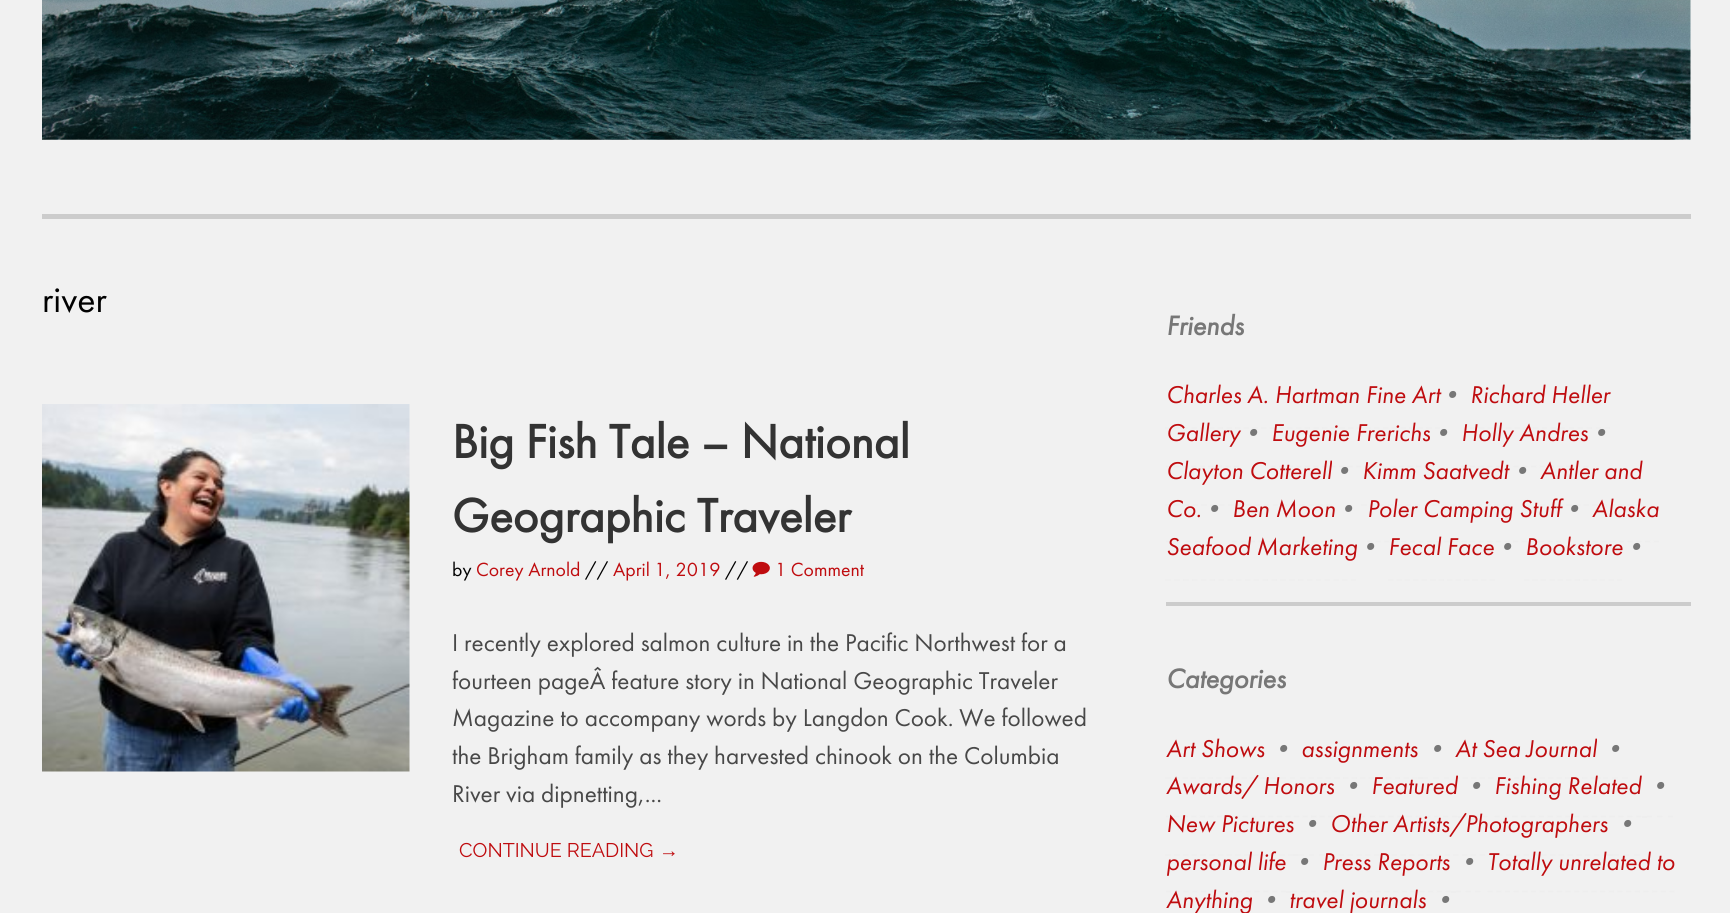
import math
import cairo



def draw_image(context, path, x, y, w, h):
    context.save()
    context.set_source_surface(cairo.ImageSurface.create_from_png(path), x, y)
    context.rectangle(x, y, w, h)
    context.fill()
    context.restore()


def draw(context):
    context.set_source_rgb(241 / 255, 241 / 255, 241 / 255)
    context.paint()
    context.set_source_rgb(204 / 255, 204 / 255, 204 / 255)
    context.rectangle(42, 214, 1649, 5)
    context.fill()
    draw_image(context, "images/1.png", 42, 0, 1649, 140)
    draw_image(context, "images/2.png", 42, 404, 368, 368)
    draw_image(context, "images/3.png", 752, 561, 18, 16)
    context.rectangle(1166, 602, 525, 4)
    context.fill()
    context.new_path()
    context.move_to(1165.5, 428)
    context.line_to(1440, 428)
    context.set_source_rgb(238 / 255, 238 / 255, 238 / 255)
    context.set_line_width(1.8)
    context.set_dash([5.25, 3.45])
    context.stroke()
    context.new_path()
    context.move_to(1470, 428)
    context.line_to(1610, 428)
    context.set_dash([5.25, 3.73])
    context.stroke()
    context.save()
    context.rectangle(1166, 271, 525, 331)
    context.clip()
    context.new_path()
    context.move_to(1165.5, 466.5)
    context.line_to(1239, 466.5)
    context.set_dash([5.25, 3.29])
    context.stroke()
    context.restore()
    context.new_path()
    context.move_to(1270.5, 466.5)
    context.line_to(1430, 466.5)
    context.set_dash([5.25, 3.31])
    context.stroke()
    context.new_path()
    context.move_to(1461, 466.5)
    context.line_to(1589, 466.5)
    context.set_dash([5.25, 3.5])
    context.stroke()
    context.new_path()
    context.move_to(1165.5, 505)
    context.line_to(1332, 505)
    context.set_dash([5.25, 3.69])
    context.stroke()
    context.new_path()
    context.move_to(1361.5, 505)
    context.line_to(1508.5, 505)
    context.set_dash([5.25, 3.6])
    context.stroke()
    context.new_path()
    context.move_to(1540, 505)
    context.line_to(1641.5, 505)
    context.set_dash([5.25, 3.5])
    context.stroke()
    context.save()
    context.rectangle(1166, 271, 525, 331)
    context.clip()
    context.new_path()
    context.move_to(1165.5, 541.5)
    context.line_to(1200.5, 541.5)
    context.set_dash([5.25, 4.67])
    context.stroke()
    context.restore()
    context.new_path()
    context.move_to(1232, 541.5)
    context.line_to(1335, 541.5)
    context.set_dash([5.25, 3.66])
    context.stroke()
    context.new_path()
    context.move_to(1367, 541.5)
    context.line_to(1561, 541.5)
    context.set_dash([5.25, 3.34])
    context.stroke()
    context.new_path()
    context.move_to(1592.5, 541.5)
    context.line_to(1659, 541.5)
    context.set_dash([5.25, 3.5])
    context.stroke()
    context.new_path()
    context.move_to(1165.5, 580)
    context.line_to(1356, 580)
    context.set_dash([5.25, 3.59])
    context.stroke()
    context.new_path()
    context.move_to(1388, 580)
    context.line_to(1494.5, 580)
    context.set_dash([5.25, 3.2])
    context.stroke()
    context.new_path()
    context.move_to(1524, 580)
    context.line_to(1622, 580)
    context.set_dash([5.25, 3.19])
    context.stroke()
    context.new_path()
    context.move_to(1165.5, 778)
    context.line_to(1263.5, 778)
    context.stroke()
    context.new_path()
    context.move_to(1263.5, 778)
    context.line_to(1269, 778)
    context.move_to(1270.5, 778)
    context.line_to(1276, 778)
    context.move_to(1280, 778)
    context.line_to(1285.5, 778)
    context.move_to(1290, 778)
    context.line_to(1295, 778)
    context.set_dash([])
    context.stroke()
    context.new_path()
    context.move_to(1300, 778)
    context.line_to(1417.5, 778)
    context.set_dash([5.25, 3.36])
    context.stroke()
    context.rectangle(1418, 777, 5, 2)
    context.fill()
    context.new_path()
    context.move_to(1423, 778)
    context.line_to(1428, 778)
    context.move_to(1433, 778)
    context.line_to(1438.5, 778)
    context.move_to(1444, 778)
    context.line_to(1449, 778)
    context.set_dash([])
    context.stroke()
    context.new_path()
    context.move_to(1454, 778)
    context.line_to(1596, 778)
    context.set_dash([5.25, 3.29])
    context.stroke()
    context.new_path()
    context.move_to(1596, 778)
    context.line_to(1601, 778)
    context.move_to(1603, 778)
    context.line_to(1608, 778)
    context.move_to(1612.5, 778)
    context.line_to(1618, 778)
    context.move_to(1622, 778)
    context.line_to(1627.5, 778)
    context.set_dash([])
    context.stroke()
    context.save()
    context.rectangle(1166, 625, 525, 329)
    context.clip()
    context.new_path()
    context.move_to(1165.5, 816.5)
    context.line_to(1333.5, 816.5)
    context.set_dash([5.25, 3.31])
    context.stroke()
    context.restore()
    context.rectangle(1334, 816, 5, 2)
    context.fill()
    context.new_path()
    context.move_to(1339, 816.5)
    context.line_to(1344, 816.5)
    context.move_to(1349, 816.5)
    context.line_to(1354.5, 816.5)
    context.move_to(1360, 816.5)
    context.line_to(1365, 816.5)
    context.stroke()
    context.new_path()
    context.move_to(1370, 816.5)
    context.line_to(1458, 816.5)
    context.set_dash([5.25, 3.89])
    context.stroke()
    context.rectangle(1458, 816, 5, 2)
    context.fill()
    context.new_path()
    context.move_to(1463, 816.5)
    context.line_to(1468, 816.5)
    context.move_to(1472.5, 816.5)
    context.line_to(1478, 816.5)
    context.move_to(1482, 816.5)
    context.line_to(1487.5, 816.5)
    context.set_dash([])
    context.stroke()
    context.new_path()
    context.move_to(1494.5, 816.5)
    context.line_to(1641.5, 816.5)
    context.set_dash([5.25, 3.6])
    context.stroke()
    context.rectangle(1642, 816, 5, 2)
    context.fill()
    context.new_path()
    context.move_to(1647, 816.5)
    context.line_to(1652, 816.5)
    context.move_to(1657, 816.5)
    context.line_to(1662.5, 816.5)
    context.move_to(1668, 816.5)
    context.line_to(1673, 816.5)
    context.set_dash([])
    context.stroke()
    context.new_path()
    context.move_to(1165.5, 855)
    context.line_to(1293, 855)
    context.set_dash([5.25, 3.5])
    context.stroke()
    context.rectangle(1293, 854, 5, 2)
    context.fill()
    context.new_path()
    context.move_to(1298.5, 855)
    context.line_to(1304, 855)
    context.move_to(1309, 855)
    context.line_to(1314, 855)
    context.move_to(1319.5, 855)
    context.line_to(1325, 855)
    context.set_dash([])
    context.stroke()
    context.new_path()
    context.move_to(1330, 855)
    context.line_to(1608, 855)
    context.set_dash([5.25, 3.55])
    context.stroke()
    context.rectangle(1608, 854, 5, 2)
    context.fill()
    context.new_path()
    context.move_to(1613.5, 855)
    context.line_to(1619, 855)
    context.move_to(1624, 855)
    context.line_to(1629, 855)
    context.move_to(1634.5, 855)
    context.line_to(1640, 855)
    context.set_dash([])
    context.stroke()
    context.save()
    context.rectangle(1166, 625, 525, 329)
    context.clip()
    context.new_path()
    context.move_to(1165.5, 891.5)
    context.line_to(1286, 891.5)
    context.set_dash([5.25, 3.64])
    context.stroke()
    context.restore()
    context.rectangle(1286, 891, 5, 2)
    context.fill()
    context.new_path()
    context.move_to(1291.5, 891.5)
    context.line_to(1297, 891.5)
    context.move_to(1301, 891.5)
    context.line_to(1306.5, 891.5)
    context.move_to(1311, 891.5)
    context.line_to(1316, 891.5)
    context.stroke()
    context.new_path()
    context.move_to(1323, 891.5)
    context.line_to(1451, 891.5)
    context.set_dash([5.25, 3.5])
    context.stroke()
    context.rectangle(1451, 891, 5, 2)
    context.fill()
    context.new_path()
    context.move_to(1456, 891.5)
    context.line_to(1461, 891.5)
    context.move_to(1465.5, 891.5)
    context.line_to(1471, 891.5)
    context.move_to(1475, 891.5)
    context.line_to(1480.5, 891.5)
    context.set_dash([])
    context.stroke()
    context.new_path()
    context.move_to(1487.5, 891.5)
    context.line_to(1675, 891.5)
    context.set_dash([5.25, 3.41])
    context.stroke()
    context.select_font_face("Futura PT")
    context.set_font_size(38)
    context.set_source_rgb(1 / 255, 1 / 255, 1 / 255)
    context.move_to(42, 312)
    context.show_text("river")
    context.select_font_face("Futura PT", cairo.FontSlant.NORMAL, cairo.FontWeight.BOLD)
    context.set_font_size(49.1)
    context.set_source_rgb(51 / 255, 51 / 255, 51 / 255)
    context.move_to(452, 458)
    context.show_text("Big Fish Tale – National")
    context.move_to(452, 532)
    context.show_text("Geographic Traveler")
    context.select_font_face("Futura PT")
    context.set_font_size(19.75)
    context.set_source_rgb(1 / 255, 1 / 255, 1 / 255)
    context.move_to(452, 576)
    context.show_text("by")
    context.set_source_rgb(191 / 255, 12 / 255, 15 / 255)
    context.move_to(476, 576)
    context.show_text("Corey Arnold")
    context.set_source_rgb(1 / 255, 1 / 255, 1 / 255)
    context.move_to(585, 576)
    context.show_text("//")
    context.set_source_rgb(191 / 255, 12 / 255, 15 / 255)
    context.move_to(613, 576)
    context.show_text("April 1, 2019")
    context.set_source_rgb(1 / 255, 1 / 255, 1 / 255)
    context.move_to(725, 576)
    context.show_text("//")
    context.set_source_rgb(191 / 255, 12 / 255, 15 / 255)
    context.move_to(775, 576)
    context.show_text("1 Comment")
    context.set_font_size(25.2)
    context.set_source_rgb(72 / 255, 72 / 255, 72 / 255)
    context.move_to(452, 651)
    context.show_text("I recently explored salmon culture in the Pacific Northwest for a")
    context.move_to(452, 689)
    context.show_text("fourteen pageÂ feature story in National Geographic Traveler")
    context.move_to(452, 726)
    context.show_text("Magazine to accompany words by Langdon Cook. We followed")
    context.move_to(452, 764)
    context.show_text("the Brigham family as they harvested chinook on the Columbia")
    context.move_to(452, 802)
    context.show_text("River via dipnetting,...")
    context.select_font_face("Raleway")
    context.set_font_size(19.75)
    context.set_source_rgb(191 / 255, 12 / 255, 15 / 255)
    context.move_to(459, 857)
    context.show_text("CONTINUE READING")
    context.select_font_face("Liberation Sans")
    context.move_to(659, 857)
    context.show_text("→")
    context.select_font_face("Futura PT", cairo.FontSlant.ITALIC, cairo.FontWeight.BOLD)
    context.set_font_size(28)
    context.set_source_rgb(119 / 255, 119 / 255, 119 / 255)
    context.move_to(1166, 335)
    context.show_text("Friends")
    context.select_font_face("Futura PT", cairo.FontSlant.ITALIC)
    context.set_font_size(25.2)
    context.set_source_rgb(191 / 255, 12 / 255, 15 / 255)
    context.move_to(1166, 403)
    context.show_text("Charles A. Hartman Fine Art")
    context.set_source_rgb(119 / 255, 119 / 255, 119 / 255)
    context.move_to(1439, 403)
    context.show_text("•")
    context.set_source_rgb(191 / 255, 12 / 255, 15 / 255)
    context.move_to(1470, 403)
    context.show_text("Richard Heller")
    context.move_to(1166, 441)
    context.show_text("Gallery")
    context.set_source_rgb(119 / 255, 119 / 255, 119 / 255)
    context.move_to(1240, 441)
    context.show_text("•")
    context.set_source_rgb(191 / 255, 12 / 255, 15 / 255)
    context.move_to(1271, 441)
    context.show_text("Eugenie Frerichs")
    context.set_source_rgb(119 / 255, 119 / 255, 119 / 255)
    context.move_to(1430, 441)
    context.show_text("•")
    context.set_source_rgb(191 / 255, 12 / 255, 15 / 255)
    context.move_to(1461, 441)
    context.show_text("Holly Andres")
    context.set_source_rgb(119 / 255, 119 / 255, 119 / 255)
    context.move_to(1588, 441)
    context.show_text("•")
    context.set_source_rgb(191 / 255, 12 / 255, 15 / 255)
    context.move_to(1166, 479)
    context.show_text("Clayton Cotterell")
    context.set_source_rgb(119 / 255, 119 / 255, 119 / 255)
    context.move_to(1331, 479)
    context.show_text("•")
    context.set_source_rgb(191 / 255, 12 / 255, 15 / 255)
    context.move_to(1362, 479)
    context.show_text("Kimm Saatvedt")
    context.set_source_rgb(119 / 255, 119 / 255, 119 / 255)
    context.move_to(1509, 479)
    context.show_text("•")
    context.set_source_rgb(191 / 255, 12 / 255, 15 / 255)
    context.move_to(1540, 479)
    context.show_text("Antler and")
    context.move_to(1166, 517)
    context.show_text("Co.")
    context.set_source_rgb(119 / 255, 119 / 255, 119 / 255)
    context.move_to(1201, 517)
    context.show_text("•")
    context.set_source_rgb(191 / 255, 12 / 255, 15 / 255)
    context.move_to(1232, 517)
    context.show_text("Ben Moon")
    context.set_source_rgb(119 / 255, 119 / 255, 119 / 255)
    context.move_to(1335, 517)
    context.show_text("•")
    context.set_source_rgb(191 / 255, 12 / 255, 15 / 255)
    context.move_to(1367, 517)
    context.show_text("Poler Camping Stuff")
    context.set_source_rgb(119 / 255, 119 / 255, 119 / 255)
    context.move_to(1561, 517)
    context.show_text("•")
    context.set_source_rgb(191 / 255, 12 / 255, 15 / 255)
    context.move_to(1592, 517)
    context.show_text("Alaska")
    context.move_to(1166, 555)
    context.show_text("Seafood Marketing")
    context.set_source_rgb(119 / 255, 119 / 255, 119 / 255)
    context.move_to(1357, 555)
    context.show_text("•")
    context.set_source_rgb(191 / 255, 12 / 255, 15 / 255)
    context.move_to(1388, 555)
    context.show_text("Fecal Face")
    context.set_source_rgb(119 / 255, 119 / 255, 119 / 255)
    context.move_to(1494, 555)
    context.show_text("•")
    context.set_source_rgb(191 / 255, 12 / 255, 15 / 255)
    context.move_to(1525, 555)
    context.show_text("Bookstore")
    context.set_source_rgb(119 / 255, 119 / 255, 119 / 255)
    context.move_to(1623, 555)
    context.show_text("•")
    context.select_font_face("Futura PT", cairo.FontSlant.ITALIC, cairo.FontWeight.BOLD)
    context.set_font_size(28)
    context.move_to(1166, 688)
    context.show_text("Categories")
    context.select_font_face("Futura PT", cairo.FontSlant.ITALIC)
    context.set_font_size(25.2)
    context.set_source_rgb(191 / 255, 12 / 255, 15 / 255)
    context.move_to(1166, 757)
    context.show_text("Art Shows")
    context.set_source_rgb(119 / 255, 119 / 255, 119 / 255)
    context.move_to(1270, 757)
    context.show_text("•")
    context.set_source_rgb(191 / 255, 12 / 255, 15 / 255)
    context.move_to(1301, 757)
    context.show_text("assignments")
    context.set_source_rgb(119 / 255, 119 / 255, 119 / 255)
    context.move_to(1424, 757)
    context.show_text("•")
    context.set_source_rgb(191 / 255, 12 / 255, 15 / 255)
    context.move_to(1455, 757)
    context.show_text("At Sea Journal")
    context.set_source_rgb(119 / 255, 119 / 255, 119 / 255)
    context.move_to(1602, 757)
    context.show_text("•")
    context.set_source_rgb(191 / 255, 12 / 255, 15 / 255)
    context.move_to(1166, 794)
    context.show_text("Awards/ Honors")
    context.set_source_rgb(119 / 255, 119 / 255, 119 / 255)
    context.move_to(1340, 794)
    context.show_text("•")
    context.set_source_rgb(191 / 255, 12 / 255, 15 / 255)
    context.move_to(1371, 794)
    context.show_text("Featured")
    context.set_source_rgb(119 / 255, 119 / 255, 119 / 255)
    context.move_to(1463, 794)
    context.show_text("•")
    context.set_source_rgb(191 / 255, 12 / 255, 15 / 255)
    context.move_to(1494, 794)
    context.show_text("Fishing Related")
    context.set_source_rgb(119 / 255, 119 / 255, 119 / 255)
    context.move_to(1647, 794)
    context.show_text("•")
    context.set_source_rgb(191 / 255, 12 / 255, 15 / 255)
    context.move_to(1166, 832)
    context.show_text("New Pictures")
    context.set_source_rgb(119 / 255, 119 / 255, 119 / 255)
    context.move_to(1299, 832)
    context.show_text("•")
    context.set_source_rgb(191 / 255, 12 / 255, 15 / 255)
    context.move_to(1330, 832)
    context.show_text("Other Artists/Photographers")
    context.set_source_rgb(119 / 255, 119 / 255, 119 / 255)
    context.move_to(1614, 832)
    context.show_text("•")
    context.set_source_rgb(191 / 255, 12 / 255, 15 / 255)
    context.move_to(1166, 870)
    context.show_text("personal life")
    context.set_source_rgb(119 / 255, 119 / 255, 119 / 255)
    context.move_to(1291, 870)
    context.show_text("•")
    context.set_source_rgb(191 / 255, 12 / 255, 15 / 255)
    context.move_to(1322, 870)
    context.show_text("Press Reports")
    context.set_source_rgb(119 / 255, 119 / 255, 119 / 255)
    context.move_to(1456, 870)
    context.show_text("•")
    context.set_source_rgb(191 / 255, 12 / 255, 15 / 255)
    context.move_to(1487, 870)
    context.show_text("Totally unrelated to")
    context.move_to(1166, 908)
    context.show_text("Anything")
    context.set_source_rgb(119 / 255, 119 / 255, 119 / 255)
    context.move_to(1258, 908)
    context.show_text("•")
    context.set_source_rgb(191 / 255, 12 / 255, 15 / 255)
    context.move_to(1289, 908)
    context.show_text("travel journals")
    context.set_source_rgb(119 / 255, 119 / 255, 119 / 255)
    context.move_to(1432, 908)
    context.show_text("•")


surface = cairo.ImageSurface(cairo.Format.RGB24, 1730, 913)
context = cairo.Context(surface)
options = cairo.FontOptions()
options.set_hint_metrics(cairo.HintMetrics.OFF)
options.set_hint_style(cairo.HintStyle.NONE)
context.set_font_options(options)
context.set_miter_limit(4)
draw(context)
surface.write_to_png("out.png")
